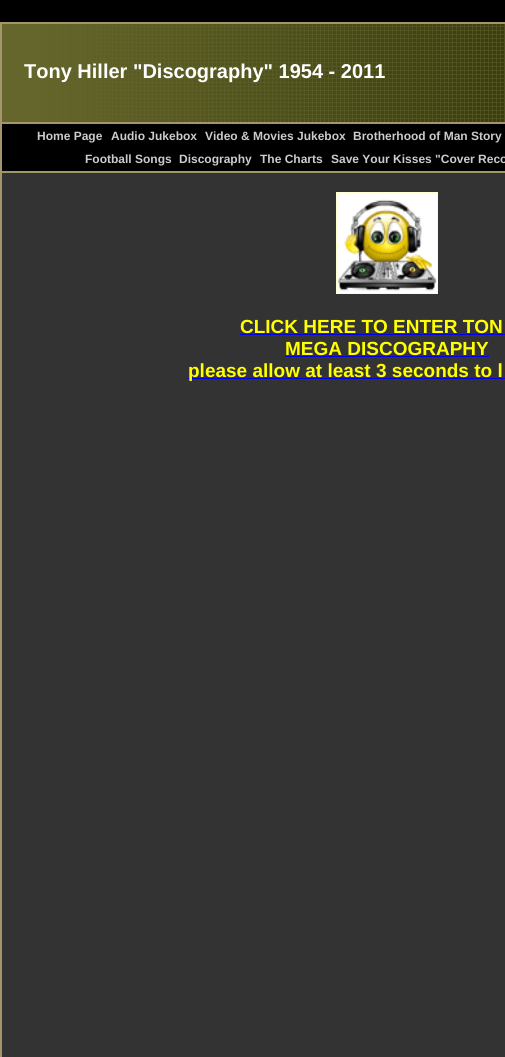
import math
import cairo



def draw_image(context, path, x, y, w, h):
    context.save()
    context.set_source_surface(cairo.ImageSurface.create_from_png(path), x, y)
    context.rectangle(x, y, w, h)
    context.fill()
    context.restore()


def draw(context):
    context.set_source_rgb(0, 0, 0)
    context.paint()
    context.set_source_rgb(51 / 255, 51 / 255, 51 / 255)
    context.rectangle(2, 173, 503, 884)
    context.fill()
    context.rectangle(1, 23, 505, 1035)
    context.set_source_rgb(163 / 255, 150 / 255, 106 / 255)
    context.stroke()
    draw_image(context, "images/1.png", 2, 24, 503, 98)
    context.rectangle(2, 122, 503, 2)
    context.fill()
    context.rectangle(2, 171, 503, 2)
    context.fill()
    context.rectangle(336.5, 192.5, 101, 101)
    context.set_source_rgb(1, 1, 204 / 255)
    context.set_line_width(1)
    context.stroke()
    draw_image(context, "images/2.png", 337, 193, 100, 100)
    context.set_source_rgb(0, 0, 238 / 255)
    context.rectangle(240, 334, 265, 1)
    context.fill()
    context.rectangle(285, 356, 204, 1)
    context.fill()
    context.rectangle(188, 378, 317, 1)
    context.fill()
    context.select_font_face("Liberation Sans", cairo.FontSlant.NORMAL, cairo.FontWeight.BOLD)
    context.set_font_size(20)
    context.set_source_rgb(1, 1, 1)
    context.move_to(24, 78)
    context.show_text("Tony Hiller \"Discography\" 1954 - 2011")
    context.set_font_size(12)
    context.set_source_rgb(204 / 255, 204 / 255, 204 / 255)
    context.move_to(37, 140)
    context.show_text("Home Page")
    context.move_to(111, 140)
    context.show_text("Audio Jukebox")
    context.move_to(205, 140)
    context.show_text("Video & Movies Jukebox")
    context.move_to(353, 140)
    context.show_text("Brotherhood of Man Story")
    context.move_to(85, 163)
    context.show_text("Football Songs")
    context.move_to(179, 163)
    context.show_text("Discography")
    context.move_to(260, 163)
    context.show_text("The Charts")
    context.move_to(331, 163)
    context.show_text("Save Your Kisses \"Cover Reco")
    context.set_font_size(19)
    context.set_source_rgb(1, 1, 0)
    context.move_to(240, 333)
    context.show_text("CLICK HERE TO ENTER TON")
    context.move_to(285, 355)
    context.show_text("MEGA DISCOGRAPHY")
    context.move_to(188, 377)
    context.show_text("please allow at least 3 seconds to l")


surface = cairo.ImageSurface(cairo.Format.RGB24, 505, 1057)
context = cairo.Context(surface)
options = cairo.FontOptions()
options.set_hint_metrics(cairo.HintMetrics.OFF)
options.set_hint_style(cairo.HintStyle.NONE)
context.set_font_options(options)
context.set_miter_limit(4)
draw(context)
surface.write_to_png("out.png")
